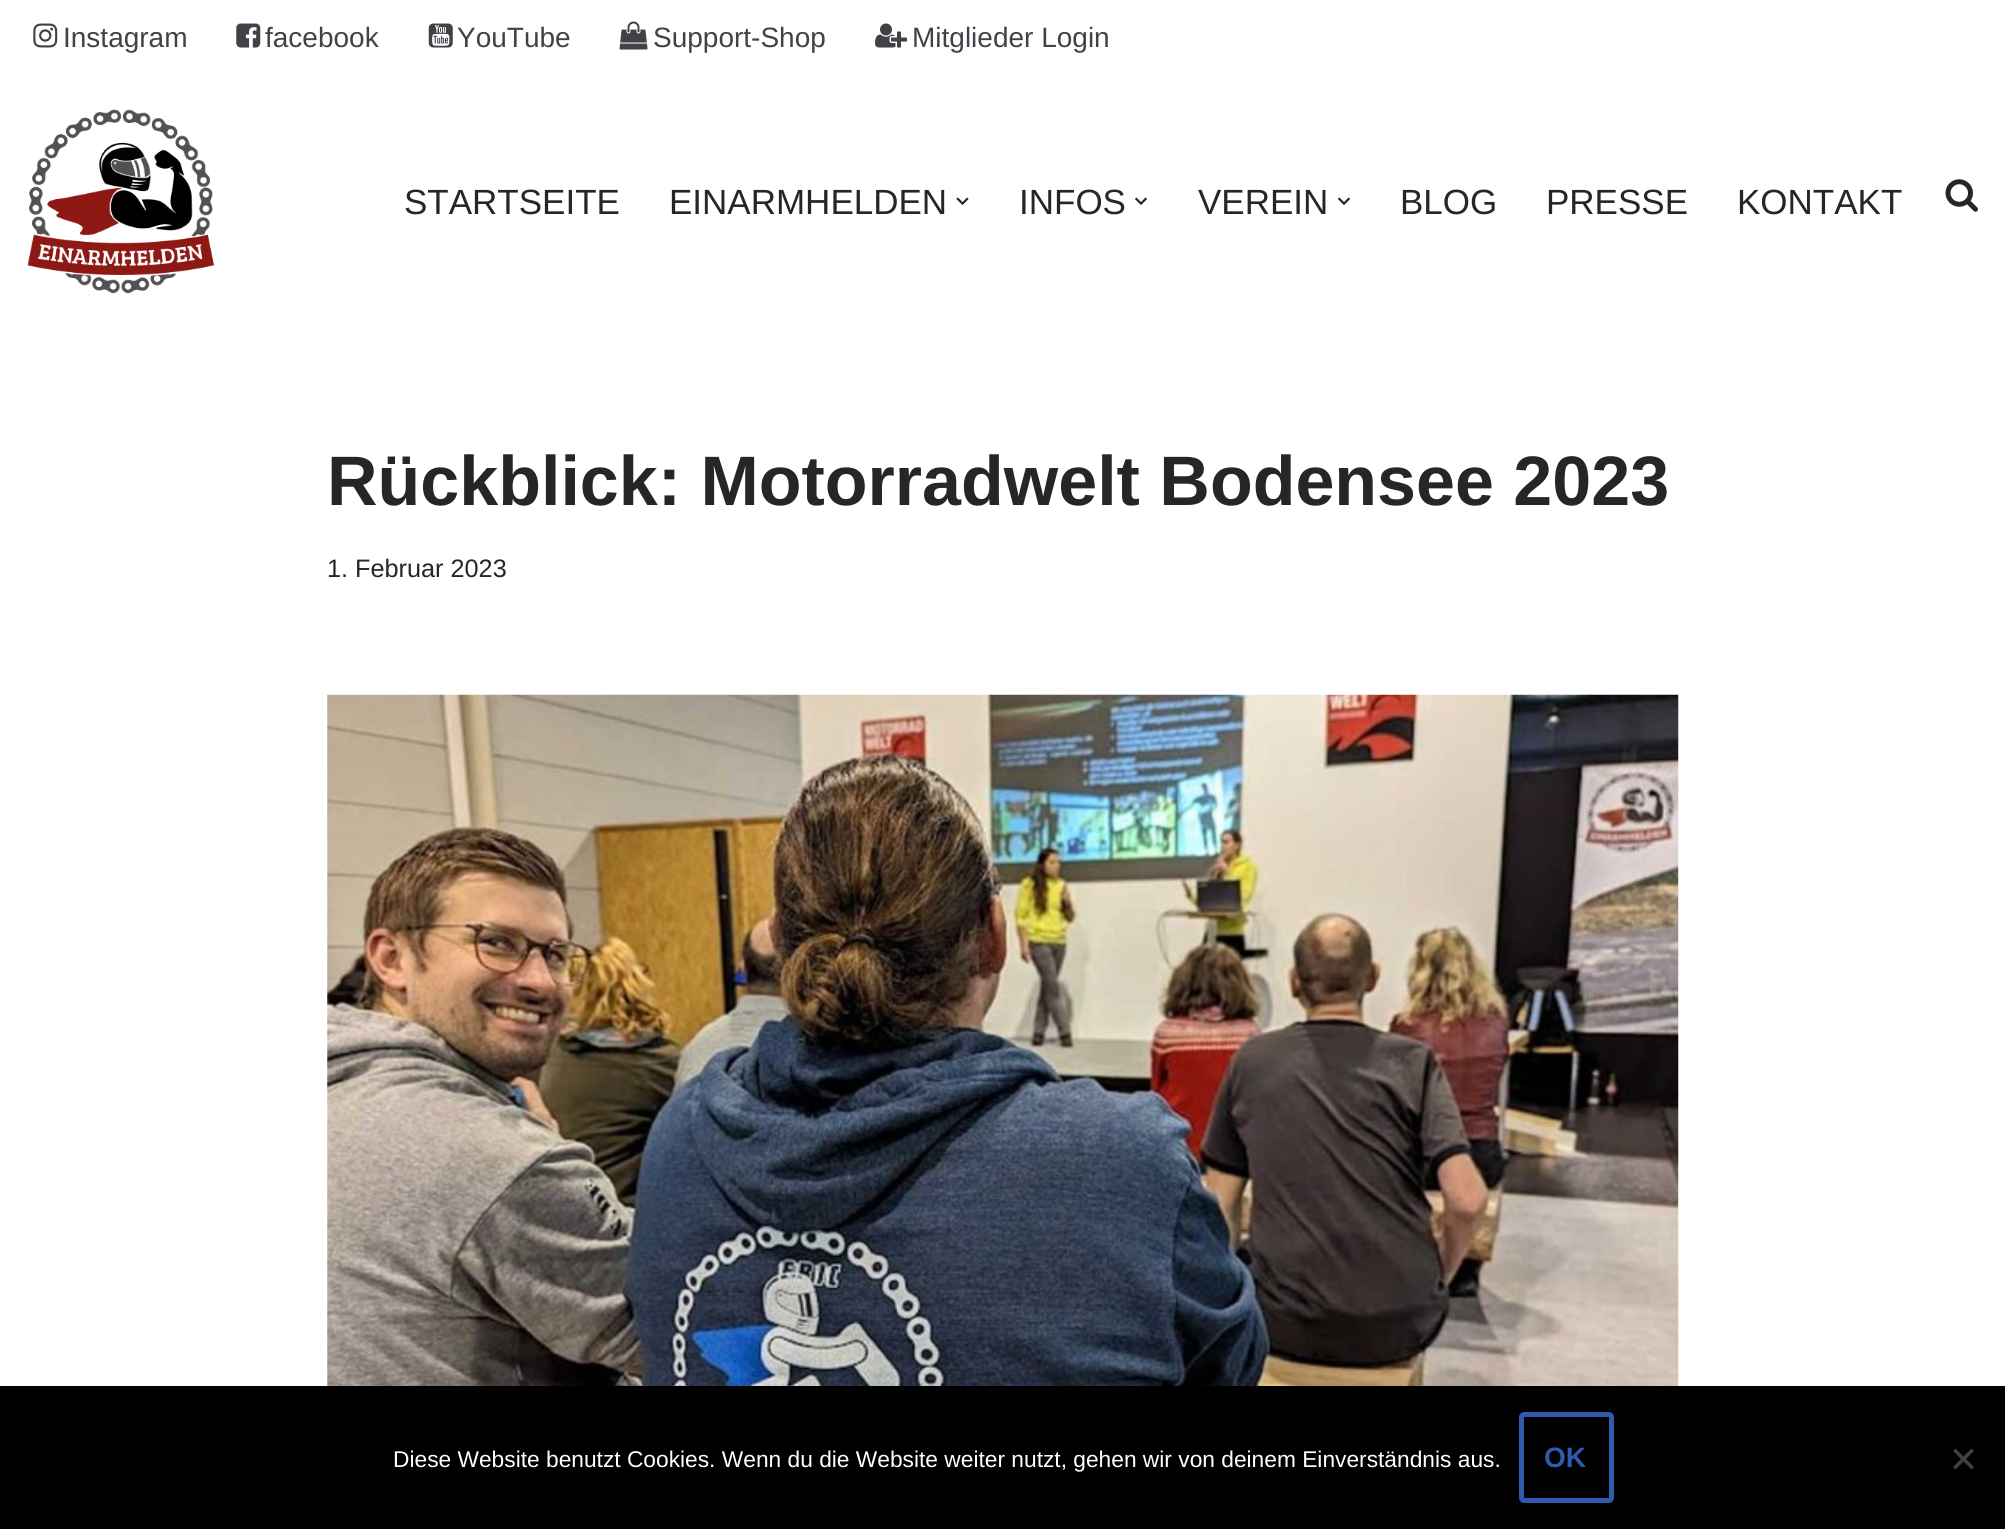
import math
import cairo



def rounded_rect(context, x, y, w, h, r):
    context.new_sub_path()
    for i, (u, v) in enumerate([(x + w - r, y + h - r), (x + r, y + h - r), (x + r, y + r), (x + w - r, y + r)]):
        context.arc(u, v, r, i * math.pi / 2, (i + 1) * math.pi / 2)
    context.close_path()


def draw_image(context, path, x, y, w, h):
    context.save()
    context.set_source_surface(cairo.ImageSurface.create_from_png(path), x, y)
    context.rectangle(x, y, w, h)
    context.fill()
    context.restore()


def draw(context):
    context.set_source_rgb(1, 1, 1)
    context.paint()
    draw_image(context, "images/1.png", 33, 23, 25, 25)
    draw_image(context, "images/2.png", 236, 23, 25, 25)
    draw_image(context, "images/3.png", 428, 23, 25, 25)
    draw_image(context, "images/4.png", 619, 21, 29, 29)
    draw_image(context, "images/5.png", 875, 23, 32, 25)
    draw_image(context, "images/6.png", 27, 109, 188, 185)
    draw_image(context, "images/7.png", 956, 197, 13, 8)
    draw_image(context, "images/8.png", 1135, 197, 12, 8)
    draw_image(context, "images/8.png", 1338, 197, 12, 8)
    draw_image(context, "images/9.png", 1945, 179, 33, 33)
    draw_image(context, "images/10.png", 327, 694, 1352, 692)
    context.set_source_rgb(0, 0, 0)
    context.rectangle(0, 1386, 2005, 143)
    context.fill()
    rounded_rect(context, 1521.5, 1414.5, 90, 86, 2.5)
    context.set_source_rgb(47 / 255, 90 / 255, 174 / 255)
    context.set_line_width(5)
    context.stroke()
    context.set_source_rgb(64 / 255, 64 / 255, 64 / 255)
    context.new_path()
    context.move_to(1971.5, 1448.5)
    context.line_to(1974, 1451)
    context.line_to(1955.5, 1469.5)
    context.line_to(1953, 1467)
    context.close_path()
    context.fill()
    context.new_path()
    context.move_to(1953, 1451)
    context.line_to(1955.5, 1448.5)
    context.line_to(1974, 1467)
    context.line_to(1971.5, 1469.5)
    context.close_path()
    context.fill()
    context.select_font_face("Liberation Sans")
    context.set_font_size(28)
    context.set_source_rgb(64 / 255, 66 / 255, 72 / 255)
    context.move_to(63, 47)
    context.show_text("Instagram")
    context.move_to(265, 47)
    context.show_text("facebook")
    context.move_to(457, 47)
    context.show_text("YouTube")
    context.move_to(653, 47)
    context.show_text("Support-Shop")
    context.move_to(912, 47)
    context.show_text("Mitglieder Login")
    context.set_font_size(35)
    context.set_source_rgb(39 / 255, 38 / 255, 38 / 255)
    context.move_to(404, 214)
    context.show_text("STARTSEITE")
    context.move_to(669, 214)
    context.show_text("EINARMHELDEN")
    context.move_to(1019, 214)
    context.show_text("INFOS")
    context.move_to(1198, 214)
    context.show_text("VEREIN")
    context.move_to(1400, 214)
    context.show_text("BLOG")
    context.move_to(1546, 214)
    context.show_text("PRESSE")
    context.move_to(1737, 214)
    context.show_text("KONTAKT")
    context.select_font_face("Liberation Sans", cairo.FontSlant.NORMAL, cairo.FontWeight.BOLD)
    context.set_font_size(70)
    context.move_to(327, 505)
    context.show_text("Rückblick: Motorradwelt Bodensee 2023")
    context.select_font_face("Liberation Sans")
    context.set_font_size(25.25)
    context.move_to(327, 577)
    context.show_text("1. Februar 2023")
    context.set_font_size(22.75)
    context.set_source_rgb(1, 1, 1)
    context.move_to(393, 1467)
    context.show_text("Diese Website benutzt Cookies. Wenn du die Website weiter nutzt, gehen wir von deinem Einverständnis aus.")
    context.select_font_face("Liberation Sans", cairo.FontSlant.NORMAL, cairo.FontWeight.BOLD)
    context.set_font_size(28)
    context.set_source_rgb(47 / 255, 90 / 255, 174 / 255)
    context.move_to(1544, 1467)
    context.show_text("OK")


surface = cairo.ImageSurface(cairo.Format.RGB24, 2005, 1529)
context = cairo.Context(surface)
options = cairo.FontOptions()
options.set_hint_metrics(cairo.HintMetrics.OFF)
options.set_hint_style(cairo.HintStyle.NONE)
context.set_font_options(options)
context.set_miter_limit(4)
draw(context)
surface.write_to_png("out.png")
